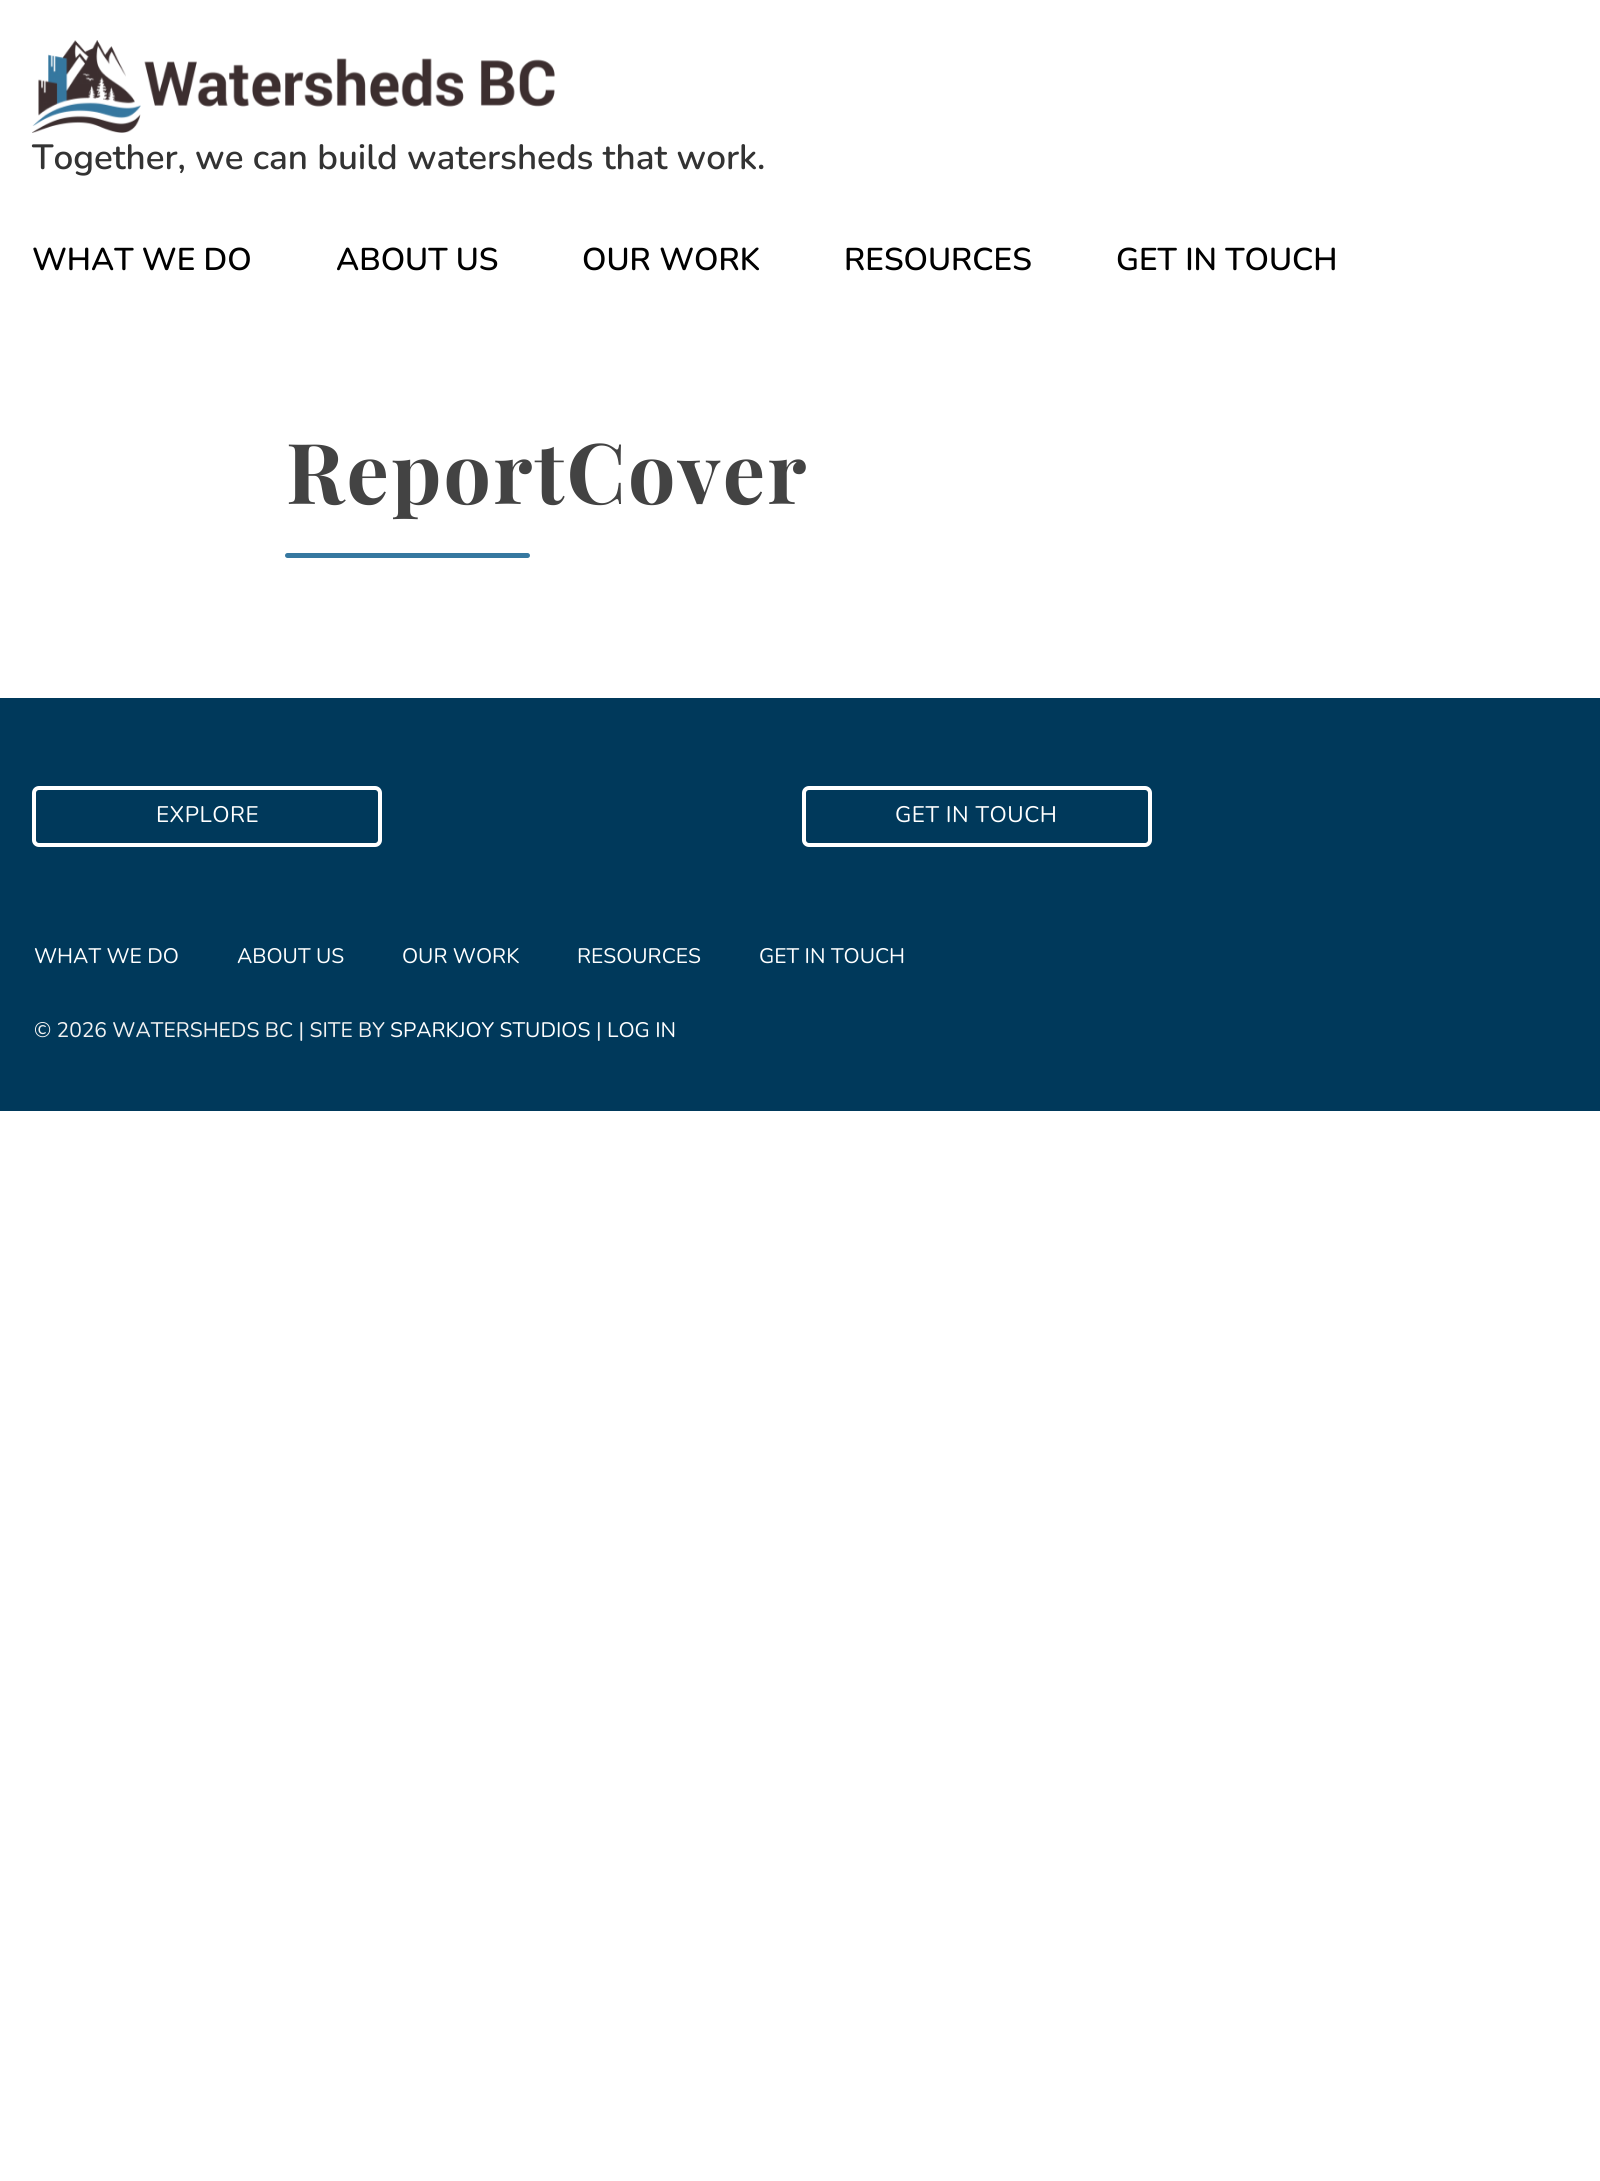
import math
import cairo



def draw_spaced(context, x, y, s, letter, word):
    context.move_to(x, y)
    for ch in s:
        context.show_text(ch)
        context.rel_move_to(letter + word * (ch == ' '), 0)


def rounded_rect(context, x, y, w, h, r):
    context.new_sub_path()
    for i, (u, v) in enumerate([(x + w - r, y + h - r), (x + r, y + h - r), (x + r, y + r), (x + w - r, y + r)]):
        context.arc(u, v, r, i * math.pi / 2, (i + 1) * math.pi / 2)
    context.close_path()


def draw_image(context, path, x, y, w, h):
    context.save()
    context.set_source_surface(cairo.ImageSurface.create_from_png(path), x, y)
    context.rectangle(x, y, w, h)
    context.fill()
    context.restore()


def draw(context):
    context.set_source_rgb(1, 1, 1)
    context.paint()
    draw_image(context, "images/1.png", 32, 40, 523, 93)
    context.set_source_rgb(54 / 255, 120 / 255, 160 / 255)
    rounded_rect(context, 285, 553, 245, 5, 2.5)
    context.fill()
    context.set_source_rgb(0, 57 / 255, 91 / 255)
    context.rectangle(0, 698, 1600, 413)
    context.fill()
    rounded_rect(context, 34, 788, 346, 57, 5)
    context.set_source_rgb(1, 1, 1)
    context.set_line_width(4)
    context.stroke()
    rounded_rect(context, 804, 788, 346, 57, 5)
    context.stroke()
    context.select_font_face("Nunito SemiBold")
    context.set_font_size(35)
    context.set_source_rgb(51 / 255, 51 / 255, 51 / 255)
    context.move_to(32, 169)
    context.show_text("Together, we can build watersheds that work.")
    context.set_font_size(31.5)
    context.set_source_rgb(0, 0, 0)
    context.move_to(32, 270)
    context.show_text("WHAT WE DO")
    context.move_to(336, 270)
    context.show_text("ABOUT US")
    context.move_to(582, 270)
    context.show_text("OUR WORK")
    context.move_to(844, 270)
    context.show_text("RESOURCES")
    context.move_to(1116, 270)
    context.show_text("GET IN TOUCH")
    context.select_font_face("Playfair Display", cairo.FontSlant.NORMAL, cairo.FontWeight.BOLD)
    context.set_font_size(84)
    context.set_source_rgb(67 / 255, 67 / 255, 67 / 255)
    draw_spaced(context, 286, 504, "ReportCover", 2.25, 0)
    context.select_font_face("Nunito")
    context.set_font_size(22.5)
    context.set_source_rgb(1, 1, 1)
    draw_spaced(context, 156, 822, "EXPLORE", 0.5, 0)
    draw_spaced(context, 895, 822, "GET IN TOUCH", 0.5, 0)
    context.set_font_size(21)
    context.move_to(34, 963)
    context.show_text("WHAT WE DO")
    context.move_to(237, 963)
    context.show_text("ABOUT US")
    context.move_to(402, 963)
    context.show_text("OUR WORK")
    context.move_to(577, 963)
    context.show_text("RESOURCES")
    context.move_to(759, 963)
    context.show_text("GET IN TOUCH")
    context.set_source_rgb(242 / 255, 242 / 255, 242 / 255)
    context.move_to(34, 1037)
    context.show_text("© 2026 WATERSHEDS BC | SITE BY")
    context.set_source_rgb(1, 1, 1)
    context.move_to(390, 1037)
    context.show_text("SPARKJOY STUDIOS")
    context.set_source_rgb(242 / 255, 242 / 255, 242 / 255)
    context.move_to(596, 1037)
    context.show_text("|")
    context.set_source_rgb(1, 1, 1)
    context.move_to(607, 1037)
    context.show_text("LOG IN")


surface = cairo.ImageSurface(cairo.Format.RGB24, 1600, 2181)
context = cairo.Context(surface)
options = cairo.FontOptions()
options.set_hint_metrics(cairo.HintMetrics.OFF)
options.set_hint_style(cairo.HintStyle.NONE)
context.set_font_options(options)
context.set_miter_limit(4)
draw(context)
surface.write_to_png("out.png")
